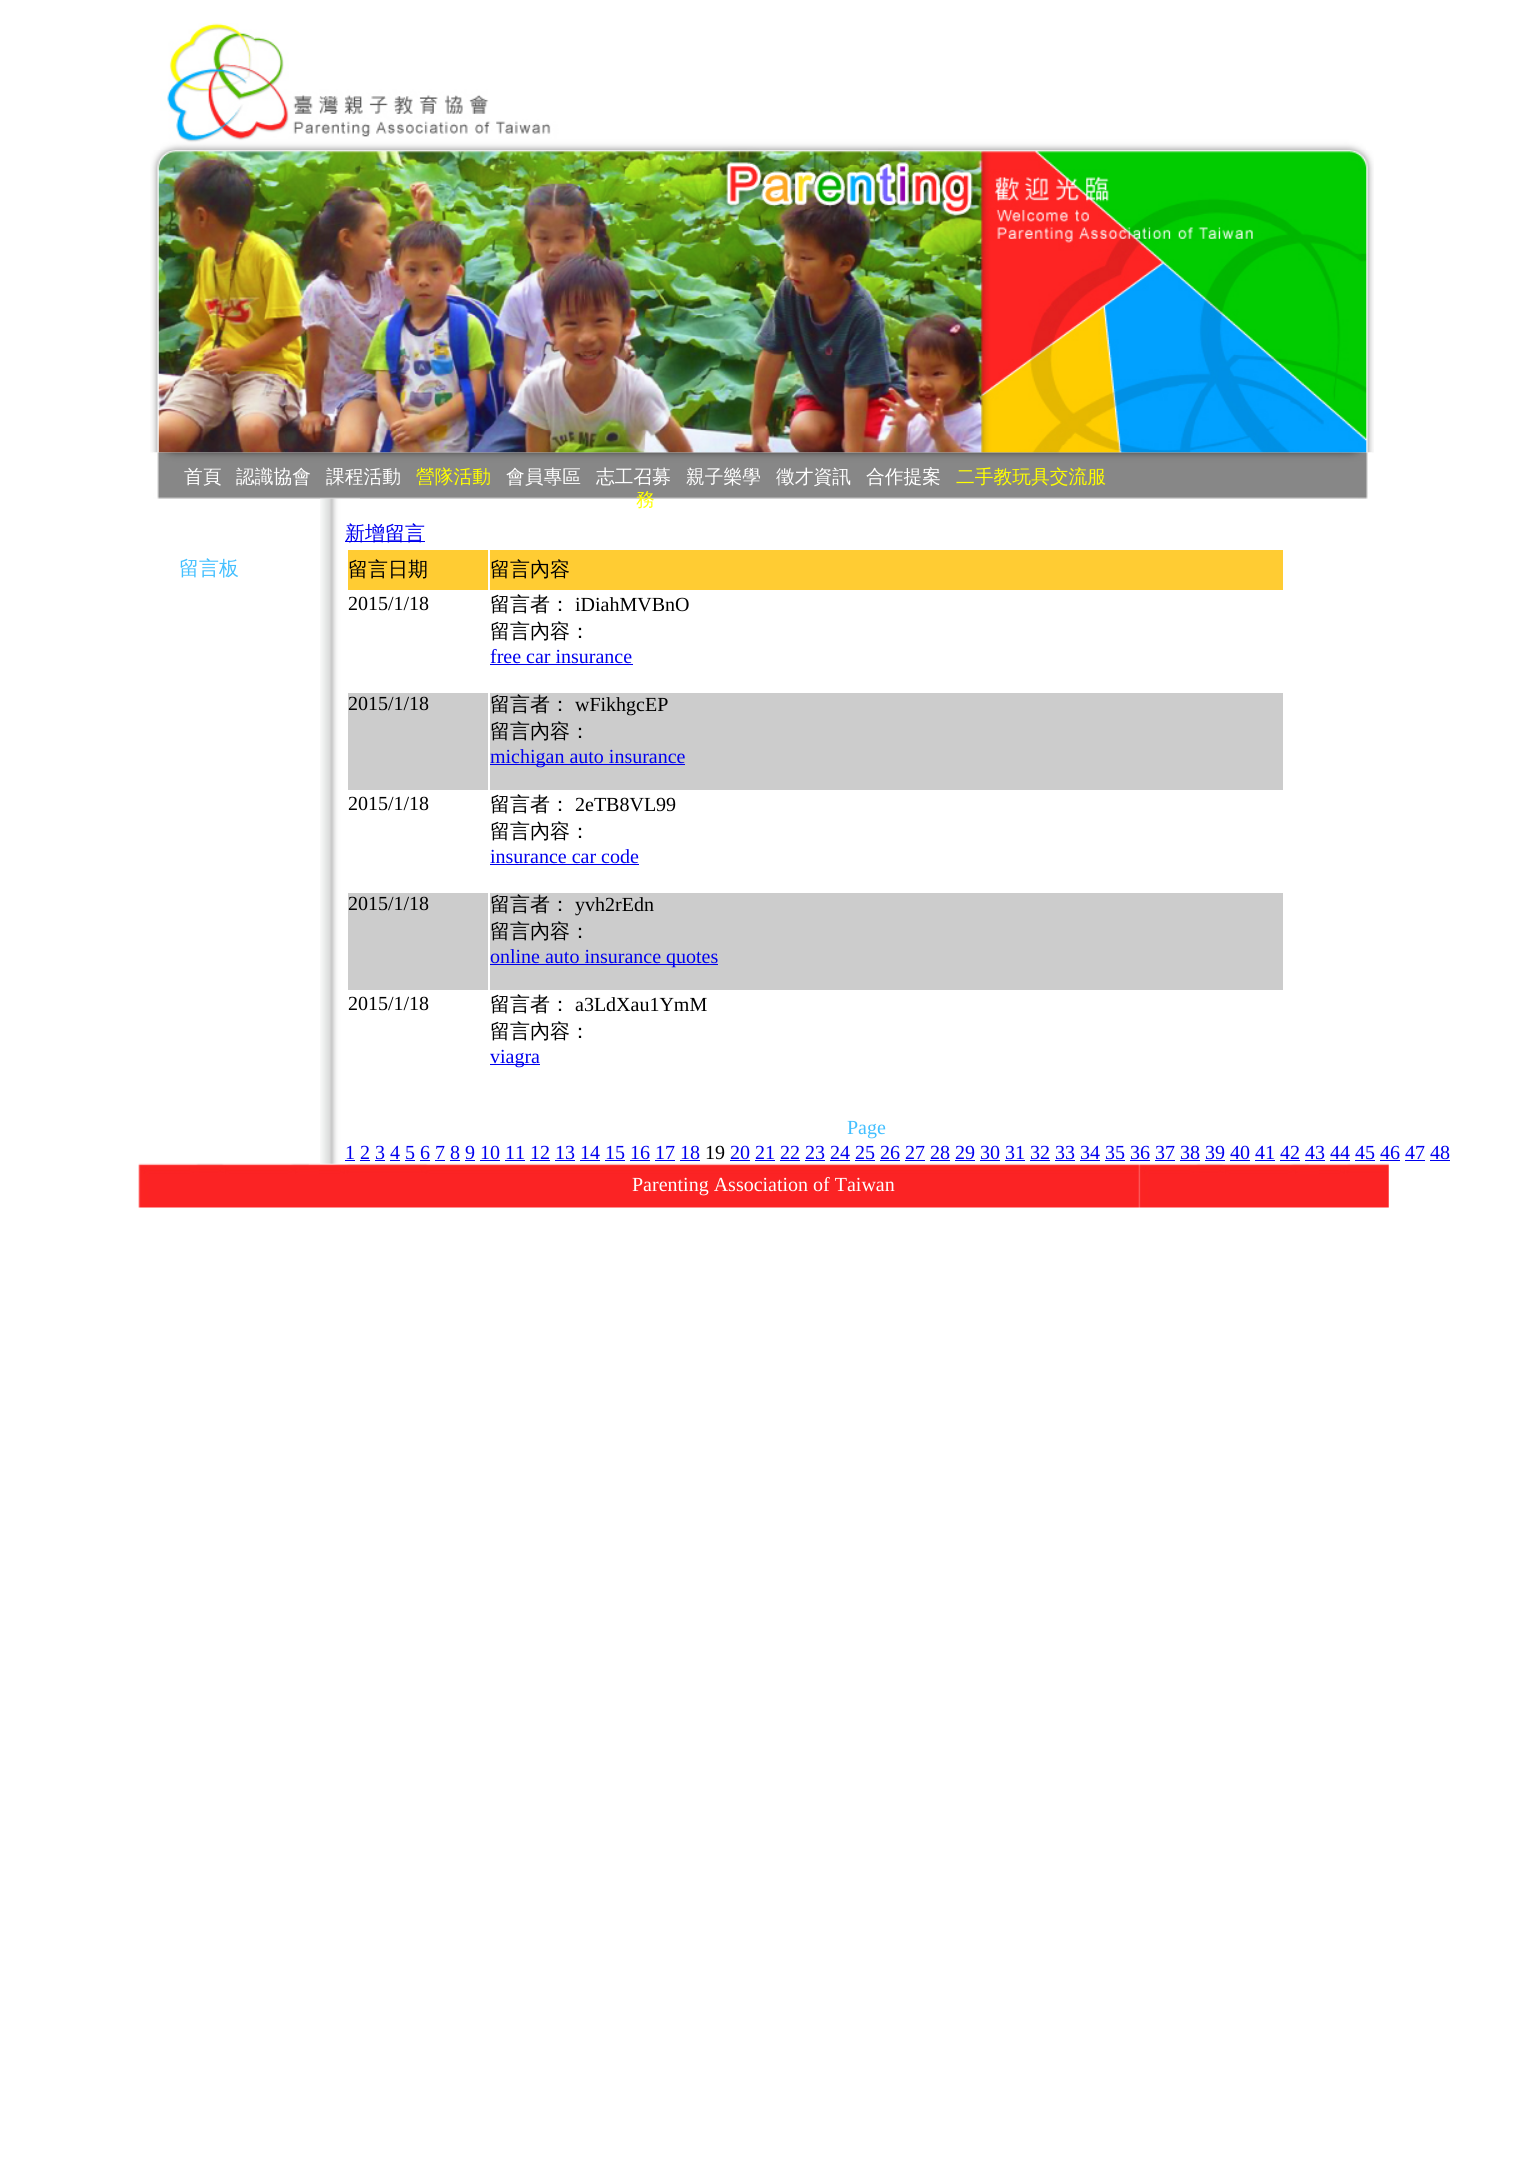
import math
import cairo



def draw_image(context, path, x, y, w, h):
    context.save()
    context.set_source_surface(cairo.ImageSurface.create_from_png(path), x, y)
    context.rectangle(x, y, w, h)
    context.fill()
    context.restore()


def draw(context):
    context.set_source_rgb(1, 1, 1)
    context.paint()
    draw_image(context, "images/1.png", 160, 23, 1206, 127)
    draw_image(context, "images/2.png", 150, 150, 1224, 303)
    draw_image(context, "images/3.png", 153, 452, 1219, 47)
    draw_image(context, "images/5.png", 138, 1163, 1251, 45)
    draw_image(context, "images/4.png", 320, 498, 40, 666)
    context.set_source_rgb(0, 0, 238 / 255)
    context.rectangle(345, 541, 80, 1)
    context.fill()
    context.set_source_rgb(1, 204 / 255, 51 / 255)
    context.rectangle(348, 550, 140, 40)
    context.fill()
    context.rectangle(490, 550, 793, 40)
    context.fill()
    context.set_source_rgb(0, 0, 238 / 255)
    context.rectangle(490, 664, 143, 1)
    context.fill()
    context.set_source_rgb(204 / 255, 204 / 255, 204 / 255)
    context.rectangle(348, 693, 140, 97)
    context.fill()
    context.rectangle(490, 693, 793, 97)
    context.fill()
    context.set_source_rgb(0, 0, 238 / 255)
    context.rectangle(490, 764, 195, 1)
    context.fill()
    context.rectangle(490, 864, 149, 1)
    context.fill()
    context.set_source_rgb(204 / 255, 204 / 255, 204 / 255)
    context.rectangle(348, 893, 140, 97)
    context.fill()
    context.rectangle(490, 893, 793, 97)
    context.fill()
    context.set_source_rgb(0, 0, 238 / 255)
    context.rectangle(490, 964, 228, 1)
    context.fill()
    context.rectangle(490, 1064, 50, 1)
    context.fill()
    context.rectangle(345, 1160, 10, 1)
    context.fill()
    context.rectangle(730, 1160, 20, 1)
    context.fill()
    context.rectangle(360, 1160, 10, 1)
    context.fill()
    context.rectangle(375, 1160, 10, 1)
    context.fill()
    context.rectangle(390, 1160, 10, 1)
    context.fill()
    context.rectangle(405, 1160, 10, 1)
    context.fill()
    context.rectangle(420, 1160, 10, 1)
    context.fill()
    context.rectangle(435, 1160, 10, 1)
    context.fill()
    context.rectangle(450, 1160, 10, 1)
    context.fill()
    context.rectangle(465, 1160, 10, 1)
    context.fill()
    context.rectangle(480, 1160, 20, 1)
    context.fill()
    context.rectangle(505, 1160, 20, 1)
    context.fill()
    context.rectangle(530, 1160, 20, 1)
    context.fill()
    context.rectangle(555, 1160, 20, 1)
    context.fill()
    context.rectangle(580, 1160, 20, 1)
    context.fill()
    context.rectangle(605, 1160, 20, 1)
    context.fill()
    context.rectangle(630, 1160, 20, 1)
    context.fill()
    context.rectangle(655, 1160, 20, 1)
    context.fill()
    context.rectangle(680, 1160, 20, 1)
    context.fill()
    context.rectangle(755, 1160, 20, 1)
    context.fill()
    context.rectangle(780, 1160, 20, 1)
    context.fill()
    context.rectangle(805, 1160, 20, 1)
    context.fill()
    context.rectangle(830, 1160, 20, 1)
    context.fill()
    context.rectangle(855, 1160, 20, 1)
    context.fill()
    context.rectangle(880, 1160, 20, 1)
    context.fill()
    context.rectangle(905, 1160, 20, 1)
    context.fill()
    context.rectangle(930, 1160, 20, 1)
    context.fill()
    context.rectangle(955, 1160, 20, 1)
    context.fill()
    context.rectangle(980, 1160, 20, 1)
    context.fill()
    context.rectangle(1005, 1160, 20, 1)
    context.fill()
    context.rectangle(1030, 1160, 20, 1)
    context.fill()
    context.rectangle(1055, 1160, 20, 1)
    context.fill()
    context.rectangle(1080, 1160, 20, 1)
    context.fill()
    context.rectangle(1105, 1160, 20, 1)
    context.fill()
    context.rectangle(1130, 1160, 20, 1)
    context.fill()
    context.rectangle(1155, 1160, 20, 1)
    context.fill()
    context.rectangle(1180, 1160, 20, 1)
    context.fill()
    context.rectangle(1205, 1160, 20, 1)
    context.fill()
    context.rectangle(1230, 1160, 20, 1)
    context.fill()
    context.rectangle(1255, 1160, 20, 1)
    context.fill()
    context.rectangle(1280, 1160, 20, 1)
    context.fill()
    context.rectangle(1305, 1160, 20, 1)
    context.fill()
    context.rectangle(1330, 1160, 20, 1)
    context.fill()
    context.rectangle(1355, 1160, 20, 1)
    context.fill()
    context.rectangle(1380, 1160, 20, 1)
    context.fill()
    context.rectangle(1405, 1160, 20, 1)
    context.fill()
    context.rectangle(1430, 1160, 20, 1)
    context.fill()
    context.select_font_face("WenQuanYi Zen Hei Medium")
    context.set_font_size(18.75)
    context.set_source_rgb(1, 1, 1)
    context.move_to(184, 483)
    context.show_text("首頁")
    context.move_to(236, 483)
    context.show_text("認識協會")
    context.move_to(326, 483)
    context.show_text("課程活動")
    context.set_source_rgb(1, 1, 0)
    context.move_to(416, 483)
    context.show_text("營隊活動")
    context.set_source_rgb(1, 1, 1)
    context.move_to(506, 483)
    context.show_text("會員專區")
    context.move_to(596, 483)
    context.show_text("志工召募")
    context.move_to(686, 483)
    context.show_text("親子樂學")
    context.move_to(776, 483)
    context.show_text("徵才資訊")
    context.move_to(866, 483)
    context.show_text("合作提案")
    context.set_source_rgb(1, 1, 0)
    context.move_to(956, 483)
    context.show_text("二手教玩具交流服")
    context.move_to(636, 506)
    context.show_text("務")
    context.set_font_size(20)
    context.set_source_rgb(67 / 255, 191 / 255, 1)
    context.move_to(179, 575)
    context.show_text("留言板")
    context.set_source_rgb(0, 0, 238 / 255)
    context.move_to(345, 540)
    context.show_text("新增留言")
    context.set_source_rgb(0, 0, 0)
    context.move_to(348, 576)
    context.show_text("留言日期")
    context.move_to(490, 576)
    context.show_text("留言內容")
    context.select_font_face("Liberation Serif")
    context.move_to(348, 610)
    context.show_text("2015/1/18")
    context.select_font_face("WenQuanYi Zen Hei Medium")
    context.move_to(490, 611)
    context.show_text("留言者：")
    context.select_font_face("Liberation Serif")
    context.move_to(575, 611)
    context.show_text("iDiahMVBnO")
    context.select_font_face("WenQuanYi Zen Hei Medium")
    context.move_to(490, 638)
    context.show_text("留言內容：")
    context.select_font_face("Liberation Serif")
    context.set_source_rgb(0, 0, 238 / 255)
    context.move_to(490, 663)
    context.show_text("free car insurance")
    context.set_source_rgb(0, 0, 0)
    context.move_to(348, 710)
    context.show_text("2015/1/18")
    context.select_font_face("WenQuanYi Zen Hei Medium")
    context.move_to(490, 711)
    context.show_text("留言者：")
    context.select_font_face("Liberation Serif")
    context.move_to(575, 711)
    context.show_text("wFikhgcEP")
    context.select_font_face("WenQuanYi Zen Hei Medium")
    context.move_to(490, 738)
    context.show_text("留言內容：")
    context.select_font_face("Liberation Serif")
    context.set_source_rgb(0, 0, 238 / 255)
    context.move_to(490, 763)
    context.show_text("michigan auto insurance")
    context.set_source_rgb(0, 0, 0)
    context.move_to(348, 810)
    context.show_text("2015/1/18")
    context.select_font_face("WenQuanYi Zen Hei Medium")
    context.move_to(490, 811)
    context.show_text("留言者：")
    context.select_font_face("Liberation Serif")
    context.move_to(575, 811)
    context.show_text("2eTB8VL99")
    context.select_font_face("WenQuanYi Zen Hei Medium")
    context.move_to(490, 838)
    context.show_text("留言內容：")
    context.select_font_face("Liberation Serif")
    context.set_source_rgb(0, 0, 238 / 255)
    context.move_to(490, 863)
    context.show_text("insurance car code")
    context.set_source_rgb(0, 0, 0)
    context.move_to(348, 910)
    context.show_text("2015/1/18")
    context.select_font_face("WenQuanYi Zen Hei Medium")
    context.move_to(490, 911)
    context.show_text("留言者：")
    context.select_font_face("Liberation Serif")
    context.move_to(575, 911)
    context.show_text("yvh2rEdn")
    context.select_font_face("WenQuanYi Zen Hei Medium")
    context.move_to(490, 938)
    context.show_text("留言內容：")
    context.select_font_face("Liberation Serif")
    context.set_source_rgb(0, 0, 238 / 255)
    context.move_to(490, 963)
    context.show_text("online auto insurance quotes")
    context.set_source_rgb(0, 0, 0)
    context.move_to(348, 1010)
    context.show_text("2015/1/18")
    context.select_font_face("WenQuanYi Zen Hei Medium")
    context.move_to(490, 1011)
    context.show_text("留言者：")
    context.select_font_face("Liberation Serif")
    context.move_to(575, 1011)
    context.show_text("a3LdXau1YmM")
    context.select_font_face("WenQuanYi Zen Hei Medium")
    context.move_to(490, 1038)
    context.show_text("留言內容：")
    context.select_font_face("Liberation Serif")
    context.set_source_rgb(0, 0, 238 / 255)
    context.move_to(490, 1063)
    context.show_text("viagra")
    context.set_source_rgb(67 / 255, 191 / 255, 1)
    context.move_to(847, 1134)
    context.show_text("Page")
    context.set_source_rgb(0, 0, 238 / 255)
    context.move_to(345, 1159)
    context.show_text("1 2 3 4 5 6 7 8 9 10 11 12 13 14 15 16 17 18")
    context.set_source_rgb(0, 0, 0)
    context.move_to(705, 1159)
    context.show_text("19")
    context.set_source_rgb(0, 0, 238 / 255)
    context.move_to(730, 1159)
    context.show_text("20 21 22 23 24 25 26 27 28 29 30 31 32 33 34 35 36 37 38 39 40 41 42 43 44 45 46 47 48")
    context.set_source_rgb(1, 1, 1)
    context.move_to(632, 1191)
    context.show_text("Parenting Association of Taiwan")


surface = cairo.ImageSurface(cairo.Format.RGB24, 1527, 2157)
context = cairo.Context(surface)
options = cairo.FontOptions()
options.set_hint_metrics(cairo.HintMetrics.OFF)
options.set_hint_style(cairo.HintStyle.NONE)
context.set_font_options(options)
context.set_miter_limit(4)
draw(context)
surface.write_to_png("out.png")
